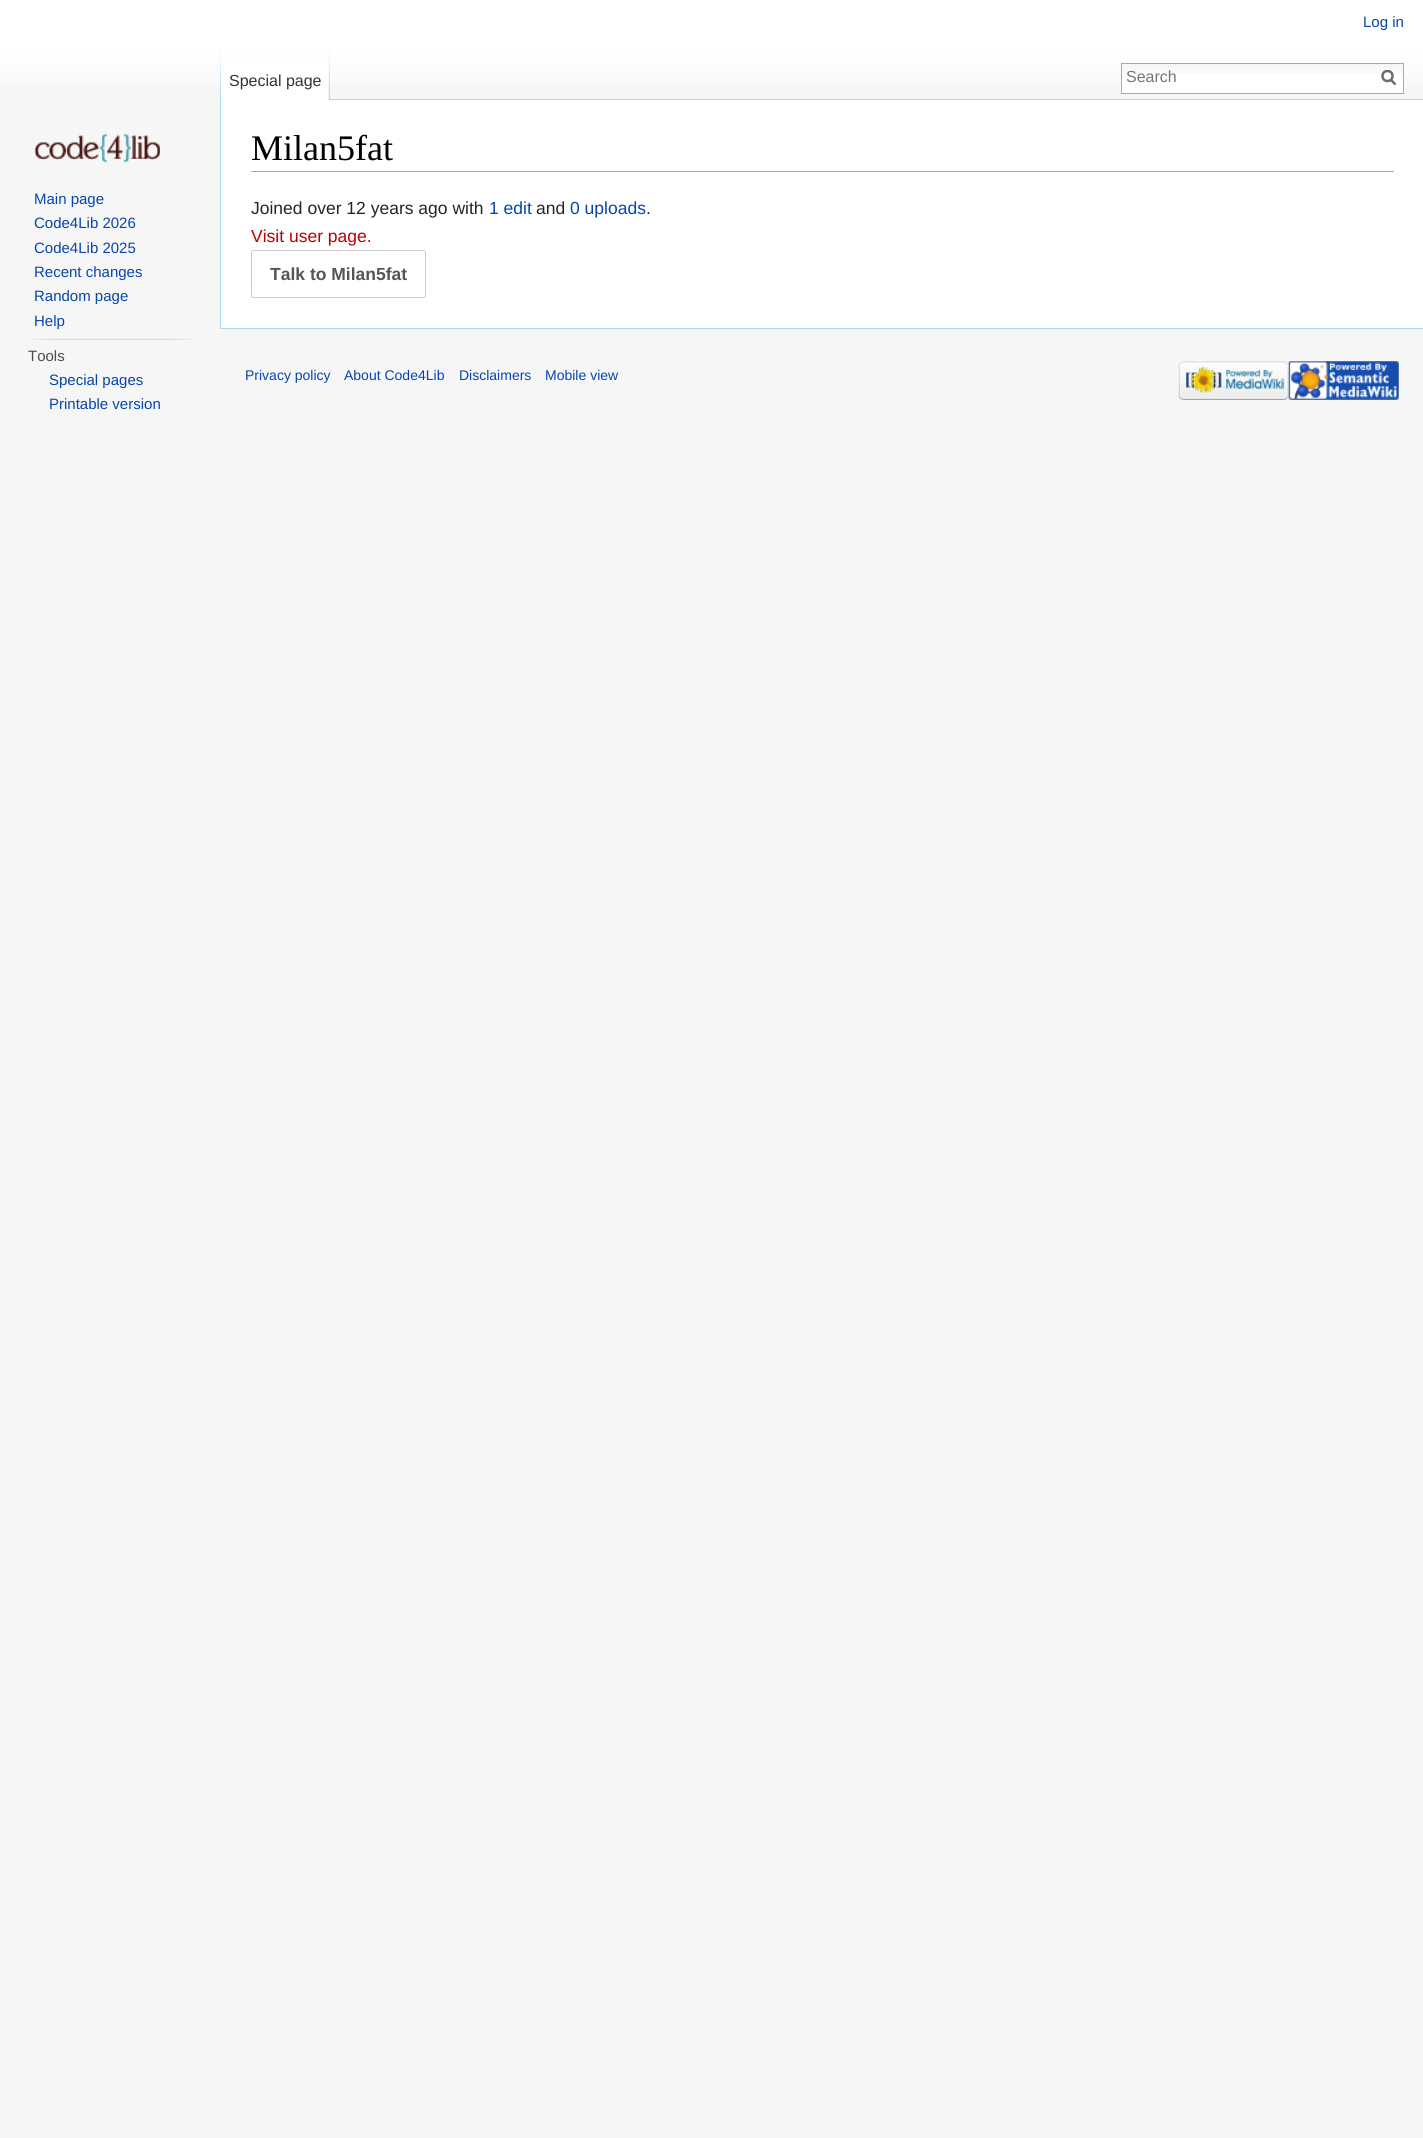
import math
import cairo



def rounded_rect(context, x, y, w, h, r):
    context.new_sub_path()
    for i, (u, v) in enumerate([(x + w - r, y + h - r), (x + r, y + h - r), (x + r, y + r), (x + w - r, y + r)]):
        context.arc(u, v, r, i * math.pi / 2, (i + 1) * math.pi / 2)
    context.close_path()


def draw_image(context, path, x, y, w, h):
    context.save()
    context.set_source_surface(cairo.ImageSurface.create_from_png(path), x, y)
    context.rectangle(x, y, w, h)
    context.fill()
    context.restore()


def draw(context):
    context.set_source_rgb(246 / 255, 246 / 255, 246 / 255)
    context.paint()
    gradient = cairo.LinearGradient(712, 0, 712, 100)
    gradient.add_color_stop_rgba(0.5, 1, 1, 1, 1)
    gradient.add_color_stop_rgba(1, 246 / 255, 246 / 255, 246 / 255, 1)
    context.set_source(gradient)
    context.rectangle(0, 0, 1423, 86)
    context.fill()
    draw_image(context, "images/1.png", 220, 50, 1, 49)
    context.set_source_rgb(1, 1, 1)
    context.rectangle(221, 64, 108, 36)
    context.fill()
    draw_image(context, "images/2.png", 328, 50, 2, 50)
    context.rectangle(1122, 74, 281, 19)
    context.fill()
    draw_image(context, "images/3.png", 1122, 64, 281, 10)
    context.rectangle(1121.5, 63.5, 282, 30)
    context.set_source_rgb(170 / 255, 170 / 255, 170 / 255)
    context.set_line_width(1)
    context.stroke()
    context.new_path()
    context.move_to(1395.5, 84.5)
    context.line_to(1390.5, 79.5)
    context.set_source_rgb(108 / 255, 108 / 255, 108 / 255)
    context.set_line_width(2.5)
    context.stroke()
    context.save()
    context.rectangle(1381, 70, 15, 16)
    context.clip()
    context.arc(1387.5, 76, 5, 0, 2 * math.pi)
    context.stroke()
    context.restore()
    draw_image(context, "images/4.png", 35, 133, 125, 30)
    draw_image(context, "images/5.png", 27, 338, 170, 2)
    context.set_source_rgb(1, 1, 1)
    context.rectangle(221, 100, 1202, 228)
    context.fill()
    context.set_source_rgb(167 / 255, 215 / 255, 249 / 255)
    context.rectangle(330, 99, 1093, 1)
    context.fill()
    context.rectangle(220, 328, 1203, 1)
    context.fill()
    context.rectangle(220, 99, 1, 230)
    context.fill()
    context.set_source_rgb(170 / 255, 170 / 255, 170 / 255)
    context.rectangle(251, 171, 1143, 1)
    context.fill()
    rounded_rect(context, 251.5, 250.5, 174, 47, 2)
    context.set_source_rgb(204 / 255, 204 / 255, 204 / 255)
    context.set_line_width(1)
    context.stroke()
    draw_image(context, "images/6.png", 1178, 361, 111, 39)
    draw_image(context, "images/7.png", 1288, 361, 111, 39)
    context.select_font_face("Liberation Sans")
    context.set_font_size(15)
    context.set_source_rgb(6 / 255, 69 / 255, 173 / 255)
    context.move_to(1363, 27)
    context.show_text("Log in")
    context.set_font_size(16)
    context.set_source_rgb(51 / 255, 51 / 255, 51 / 255)
    context.move_to(229, 86)
    context.show_text("Special page")
    context.set_source_rgb(117 / 255, 117 / 255, 117 / 255)
    context.move_to(1126, 82)
    context.show_text("Search")
    context.set_font_size(15)
    context.set_source_rgb(6 / 255, 69 / 255, 173 / 255)
    context.move_to(34, 204)
    context.show_text("Main page")
    context.move_to(34, 228)
    context.show_text("Code4Lib 2026")
    context.move_to(34, 253)
    context.show_text("Code4Lib 2025")
    context.move_to(34, 277)
    context.show_text("Recent changes")
    context.move_to(34, 301)
    context.show_text("Random page")
    context.move_to(34, 326)
    context.show_text("Help")
    context.set_source_rgb(77 / 255, 77 / 255, 77 / 255)
    context.move_to(28, 361)
    context.show_text("Tools")
    context.set_source_rgb(6 / 255, 69 / 255, 173 / 255)
    context.move_to(49, 385)
    context.show_text("Special pages")
    context.move_to(49, 409)
    context.show_text("Printable version")
    context.select_font_face("Liberation Serif")
    context.set_font_size(36)
    context.set_source_rgb(0, 0, 0)
    context.move_to(251, 160)
    context.show_text("Milan5fat")
    context.select_font_face("Liberation Sans")
    context.set_font_size(17.5)
    context.set_source_rgb(37 / 255, 37 / 255, 37 / 255)
    context.move_to(251, 214)
    context.show_text("Joined over 12 years ago with")
    context.set_source_rgb(6 / 255, 69 / 255, 173 / 255)
    context.move_to(489, 214)
    context.show_text("1 edit")
    context.set_source_rgb(37 / 255, 37 / 255, 37 / 255)
    context.move_to(536, 214)
    context.show_text("and")
    context.set_source_rgb(6 / 255, 69 / 255, 173 / 255)
    context.move_to(570, 214)
    context.show_text("0 uploads")
    context.set_source_rgb(37 / 255, 37 / 255, 37 / 255)
    context.move_to(646, 214)
    context.show_text(".")
    context.set_source_rgb(186 / 255, 0, 0)
    context.move_to(251, 242)
    context.show_text("Visit user page.")
    context.select_font_face("Liberation Sans", cairo.FontSlant.NORMAL, cairo.FontWeight.BOLD)
    context.set_source_rgb(85 / 255, 85 / 255, 85 / 255)
    context.move_to(270, 280)
    context.show_text("Talk to Milan5fat")
    context.select_font_face("Liberation Sans")
    context.set_font_size(14)
    context.set_source_rgb(6 / 255, 69 / 255, 173 / 255)
    context.move_to(245, 380)
    context.show_text("Privacy policy")
    context.move_to(344, 380)
    context.show_text("About Code4Lib")
    context.move_to(459, 380)
    context.show_text("Disclaimers")
    context.move_to(545, 380)
    context.show_text("Mobile view")


surface = cairo.ImageSurface(cairo.Format.RGB24, 1423, 2138)
context = cairo.Context(surface)
options = cairo.FontOptions()
options.set_hint_metrics(cairo.HintMetrics.OFF)
options.set_hint_style(cairo.HintStyle.NONE)
context.set_font_options(options)
context.set_miter_limit(4)
draw(context)
surface.write_to_png("out.png")
